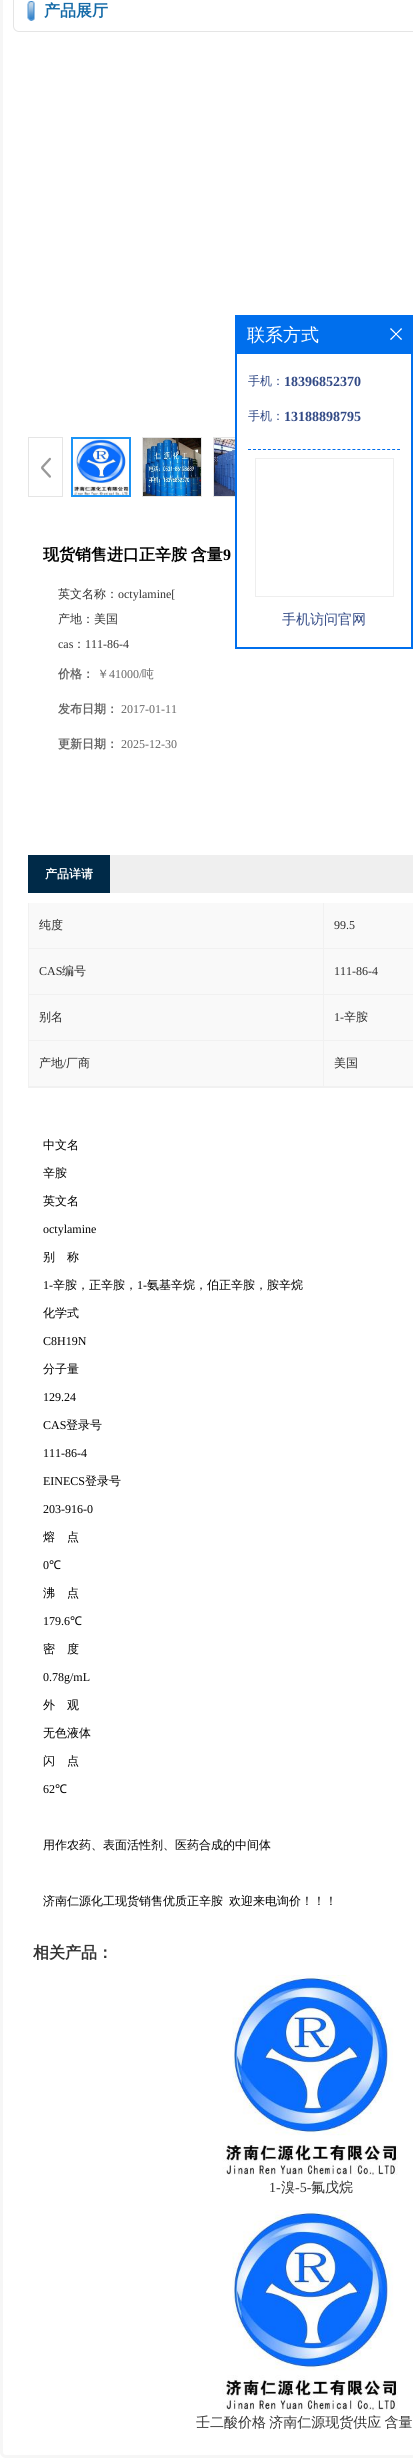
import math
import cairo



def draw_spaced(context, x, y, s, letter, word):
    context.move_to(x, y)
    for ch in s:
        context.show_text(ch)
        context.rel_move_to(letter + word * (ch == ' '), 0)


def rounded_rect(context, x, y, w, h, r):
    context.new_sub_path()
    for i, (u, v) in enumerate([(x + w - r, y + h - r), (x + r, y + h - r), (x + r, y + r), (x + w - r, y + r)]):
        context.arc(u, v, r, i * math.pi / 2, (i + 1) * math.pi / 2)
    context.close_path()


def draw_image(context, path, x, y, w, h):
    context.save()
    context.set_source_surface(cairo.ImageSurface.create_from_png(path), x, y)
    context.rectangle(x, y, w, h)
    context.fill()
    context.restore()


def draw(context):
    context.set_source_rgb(1, 1, 1)
    context.paint()
    rounded_rect(context, 1.5, -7.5, 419, 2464, 4.5)
    context.set_source_rgb(246 / 255, 246 / 255, 246 / 255)
    context.set_line_width(3)
    context.stroke()
    draw_image(context, "images/1.png", 27, 1, 8, 20)
    rounded_rect(context, 13.5, -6.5, 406, 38, 5.5)
    context.set_source_rgb(229 / 255, 229 / 255, 229 / 255)
    context.set_line_width(1)
    context.stroke()
    draw_image(context, "images/2.png", 41, 457, 10, 21)
    context.rectangle(28.5, 437.5, 34, 59)
    context.stroke()
    context.rectangle(72, 438, 58, 58)
    context.set_source_rgb(27 / 255, 148 / 255, 246 / 255)
    context.set_line_width(2)
    context.stroke()
    draw_image(context, "images/3.png", 73, 439, 56, 56)
    context.rectangle(142.5, 437.5, 59, 59)
    context.set_source_rgb(229 / 255, 229 / 255, 229 / 255)
    context.set_line_width(1)
    context.stroke()
    draw_image(context, "images/4.png", 143, 438, 58, 58)
    context.rectangle(213.5, 437.5, 59, 59)
    context.stroke()
    draw_image(context, "images/5.png", 214, 438, 21, 58)
    context.set_source_rgb(239 / 255, 239 / 255, 239 / 255)
    context.rectangle(110, 855, 303, 38)
    context.fill()
    context.set_source_rgb(0, 42 / 255, 72 / 255)
    context.rectangle(28, 855, 82, 38)
    context.fill()
    context.set_source_rgb(241 / 255, 241 / 255, 241 / 255)
    context.rectangle(28, 1087, 385, 1)
    context.fill()
    context.rectangle(28, 903, 1, 185)
    context.fill()
    context.set_source_rgb(249 / 255, 249 / 255, 249 / 255)
    context.rectangle(29, 903, 384, 183)
    context.fill()
    context.set_source_rgb(241 / 255, 241 / 255, 241 / 255)
    context.rectangle(323, 903, 1, 184)
    context.fill()
    context.rectangle(29, 948, 384, 1)
    context.fill()
    context.rectangle(29, 994, 384, 1)
    context.fill()
    context.rectangle(29, 1040, 384, 1)
    context.fill()
    context.rectangle(29, 1086, 384, 1)
    context.fill()
    draw_image(context, "images/6.png", 222, 1975, 176, 200)
    draw_image(context, "images/6.png", 222, 2210, 176, 200)
    context.set_source_rgb(0, 111 / 255, 237 / 255)
    context.rectangle(235, 315, 178, 334)
    context.fill()
    draw_image(context, "images/7.png", 390, 328, 12, 12)
    context.set_source_rgb(1, 1, 1)
    context.rectangle(237, 354, 174, 293)
    context.fill()
    context.new_path()
    context.move_to(248, 449.5)
    context.line_to(400, 449.5)
    context.set_source_rgb(0, 111 / 255, 237 / 255)
    context.set_dash([3, 1.97])
    context.stroke()
    context.rectangle(255.5, 458.5, 138, 138)
    context.set_source_rgb(238 / 255, 238 / 255, 238 / 255)
    context.set_dash([])
    context.stroke()
    context.select_font_face("WenQuanYi Zen Hei", cairo.FontSlant.NORMAL, cairo.FontWeight.BOLD)
    context.set_font_size(16)
    context.set_source_rgb(20 / 255, 106 / 255, 167 / 255)
    context.move_to(44, 16)
    context.show_text("产品展厅")
    context.set_source_rgb(0, 0, 0)
    draw_spaced(context, 43, 560, "现货销售进口正辛胺 含量", 0, -1)
    context.select_font_face("Liberation Serif", cairo.FontSlant.NORMAL, cairo.FontWeight.BOLD)
    context.move_to(223, 560)
    context.show_text("9")
    context.select_font_face("WenQuanYi Zen Hei Medium")
    context.set_font_size(12)
    context.set_source_rgb(51 / 255, 51 / 255, 51 / 255)
    context.move_to(58, 598)
    context.show_text("英文名称：")
    context.select_font_face("Liberation Serif")
    context.move_to(118, 598)
    context.show_text("octylamine[")
    context.select_font_face("WenQuanYi Zen Hei Medium")
    context.move_to(58, 623)
    context.show_text("产地：美国")
    context.select_font_face("Liberation Serif")
    context.move_to(58, 648)
    context.show_text("cas")
    context.select_font_face("WenQuanYi Zen Hei Medium")
    context.move_to(73, 648)
    context.show_text("：")
    context.select_font_face("Liberation Serif")
    context.move_to(85, 648)
    context.show_text("111-86-4")
    context.select_font_face("WenQuanYi Zen Hei", cairo.FontSlant.NORMAL, cairo.FontWeight.BOLD)
    context.set_source_rgb(102 / 255, 102 / 255, 102 / 255)
    context.move_to(58, 678)
    context.show_text("价格：")
    context.select_font_face("WenQuanYi Zen Hei Medium")
    context.move_to(97, 678)
    context.show_text("￥")
    context.select_font_face("Liberation Serif")
    context.move_to(109, 678)
    context.show_text("41000/")
    context.select_font_face("WenQuanYi Zen Hei Medium")
    context.move_to(142, 678)
    context.show_text("吨")
    context.select_font_face("WenQuanYi Zen Hei", cairo.FontSlant.NORMAL, cairo.FontWeight.BOLD)
    context.move_to(58, 713)
    context.show_text("发布日期：")
    context.select_font_face("Liberation Serif")
    context.move_to(121, 713)
    context.show_text("2017-01-11")
    context.select_font_face("WenQuanYi Zen Hei", cairo.FontSlant.NORMAL, cairo.FontWeight.BOLD)
    context.move_to(58, 748)
    context.show_text("更新日期：")
    context.select_font_face("Liberation Serif")
    context.move_to(121, 748)
    context.show_text("2025-12-30")
    context.select_font_face("WenQuanYi Zen Hei", cairo.FontSlant.NORMAL, cairo.FontWeight.BOLD)
    context.set_source_rgb(1, 1, 1)
    context.move_to(45, 878)
    context.show_text("产品详请")
    context.select_font_face("WenQuanYi Zen Hei Medium")
    context.set_source_rgb(45 / 255, 45 / 255, 45 / 255)
    context.move_to(39, 929)
    context.show_text("纯度")
    context.select_font_face("Liberation Serif")
    context.move_to(334, 929)
    context.show_text("99.5")
    context.move_to(39, 975)
    context.show_text("CAS")
    context.select_font_face("WenQuanYi Zen Hei Medium")
    context.move_to(62, 975)
    context.show_text("编号")
    context.select_font_face("Liberation Serif")
    context.move_to(334, 975)
    context.show_text("111-86-4")
    context.select_font_face("WenQuanYi Zen Hei Medium")
    context.move_to(39, 1021)
    context.show_text("别名")
    context.select_font_face("Liberation Serif")
    context.move_to(334, 1021)
    context.show_text("1-")
    context.select_font_face("WenQuanYi Zen Hei Medium")
    context.move_to(344, 1021)
    context.show_text("辛胺")
    context.move_to(39, 1067)
    context.show_text("产地")
    context.select_font_face("Liberation Serif")
    context.move_to(63, 1067)
    context.show_text("/")
    context.select_font_face("WenQuanYi Zen Hei Medium")
    context.move_to(66, 1067)
    context.show_text("厂商")
    context.move_to(334, 1067)
    context.show_text("美国")
    context.set_source_rgb(0, 0, 0)
    context.move_to(43, 1149)
    context.show_text("中文名")
    context.move_to(43, 1177)
    context.show_text("辛胺")
    context.move_to(43, 1205)
    context.show_text("英文名")
    context.select_font_face("Liberation Serif")
    context.move_to(43, 1233)
    context.show_text("octylamine")
    context.select_font_face("WenQuanYi Zen Hei Medium")
    context.move_to(43, 1261)
    context.show_text("别")
    context.move_to(67, 1261)
    context.show_text("称")
    context.select_font_face("Liberation Serif")
    context.move_to(43, 1289)
    context.show_text("1-")
    context.select_font_face("WenQuanYi Zen Hei Medium")
    context.move_to(53, 1289)
    context.show_text("辛胺，正辛胺，")
    context.select_font_face("Liberation Serif")
    context.move_to(137, 1289)
    context.show_text("1-")
    context.select_font_face("WenQuanYi Zen Hei Medium")
    context.move_to(147, 1289)
    context.show_text("氨基辛烷，伯正辛胺，胺辛烷")
    context.move_to(43, 1317)
    context.show_text("化学式")
    context.select_font_face("Liberation Serif")
    context.move_to(43, 1345)
    context.show_text("C8H19N")
    context.select_font_face("WenQuanYi Zen Hei Medium")
    context.move_to(43, 1373)
    context.show_text("分子量")
    context.select_font_face("Liberation Serif")
    context.move_to(43, 1401)
    context.show_text("129.24")
    context.move_to(43, 1429)
    context.show_text("CAS")
    context.select_font_face("WenQuanYi Zen Hei Medium")
    context.move_to(66, 1429)
    context.show_text("登录号")
    context.select_font_face("Liberation Serif")
    context.move_to(43, 1457)
    context.show_text("111-86-4")
    context.move_to(43, 1485)
    context.show_text("EINECS")
    context.select_font_face("WenQuanYi Zen Hei Medium")
    context.move_to(85, 1485)
    context.show_text("登录号")
    context.select_font_face("Liberation Serif")
    context.move_to(43, 1513)
    context.show_text("203-916-0")
    context.select_font_face("WenQuanYi Zen Hei Medium")
    context.move_to(43, 1541)
    context.show_text("熔")
    context.move_to(67, 1541)
    context.show_text("点")
    context.select_font_face("Liberation Serif")
    context.move_to(43, 1569)
    context.show_text("0")
    context.select_font_face("Noto Sans")
    context.move_to(49, 1569)
    context.show_text("℃")
    context.select_font_face("WenQuanYi Zen Hei Medium")
    context.move_to(43, 1597)
    context.show_text("沸")
    context.move_to(67, 1597)
    context.show_text("点")
    context.select_font_face("Liberation Serif")
    context.move_to(43, 1625)
    context.show_text("179.6")
    context.select_font_face("Noto Sans")
    context.move_to(70, 1625)
    context.show_text("℃")
    context.select_font_face("WenQuanYi Zen Hei Medium")
    context.move_to(43, 1653)
    context.show_text("密")
    context.move_to(67, 1653)
    context.show_text("度")
    context.select_font_face("Liberation Serif")
    context.move_to(43, 1681)
    context.show_text("0.78g/mL")
    context.select_font_face("WenQuanYi Zen Hei Medium")
    context.move_to(43, 1709)
    context.show_text("外")
    context.move_to(67, 1709)
    context.show_text("观")
    context.move_to(43, 1737)
    context.show_text("无色液体")
    context.move_to(43, 1765)
    context.show_text("闪")
    context.move_to(67, 1765)
    context.show_text("点")
    context.select_font_face("Liberation Serif")
    context.move_to(43, 1793)
    context.show_text("62")
    context.select_font_face("Noto Sans")
    context.move_to(55, 1793)
    context.show_text("℃")
    context.select_font_face("WenQuanYi Zen Hei Medium")
    context.move_to(43, 1849)
    context.show_text("用作农药、表面活性剂、医药合成的中间体")
    context.move_to(43, 1905)
    context.show_text("济南仁源化工现货销售优质正辛胺")
    context.move_to(229, 1905)
    context.show_text("欢迎来电询价！！！")
    context.select_font_face("WenQuanYi Zen Hei", cairo.FontSlant.NORMAL, cairo.FontWeight.BOLD)
    context.set_font_size(16)
    context.set_source_rgb(51 / 255, 51 / 255, 51 / 255)
    context.move_to(33, 1958)
    context.show_text("相关产品：")
    context.select_font_face("Liberation Serif")
    context.set_font_size(14)
    context.move_to(269, 2192)
    context.show_text("1-")
    context.select_font_face("WenQuanYi Zen Hei Medium")
    context.move_to(281, 2192)
    context.show_text("溴")
    context.select_font_face("Liberation Serif")
    context.move_to(295, 2192)
    context.show_text("-5-")
    context.select_font_face("WenQuanYi Zen Hei Medium")
    context.move_to(311, 2192)
    context.show_text("氟戊烷")
    draw_spaced(context, 196, 2427, "壬二酸价格 济南仁源现货供应 含量", 0, -1)
    context.set_font_size(18)
    context.set_source_rgb(1, 1, 1)
    context.move_to(247, 341)
    context.show_text("联系方式")
    context.set_font_size(12)
    context.set_source_rgb(49 / 255, 73 / 255, 133 / 255)
    context.move_to(248, 385)
    context.show_text("手机：")
    context.select_font_face("Liberation Serif", cairo.FontSlant.NORMAL, cairo.FontWeight.BOLD)
    context.set_font_size(14)
    context.move_to(284, 386)
    context.show_text("18396852370")
    context.select_font_face("WenQuanYi Zen Hei Medium")
    context.set_font_size(12)
    context.move_to(248, 420)
    context.show_text("手机：")
    context.select_font_face("Liberation Serif", cairo.FontSlant.NORMAL, cairo.FontWeight.BOLD)
    context.set_font_size(14)
    context.move_to(284, 421)
    context.show_text("13188898795")
    context.select_font_face("WenQuanYi Zen Hei Medium")
    context.move_to(282, 624)
    context.show_text("手机访问官网")


surface = cairo.ImageSurface(cairo.Format.RGB24, 413, 2459)
context = cairo.Context(surface)
options = cairo.FontOptions()
options.set_hint_metrics(cairo.HintMetrics.OFF)
options.set_hint_style(cairo.HintStyle.NONE)
context.set_font_options(options)
context.set_miter_limit(4)
draw(context)
surface.write_to_png("out.png")
